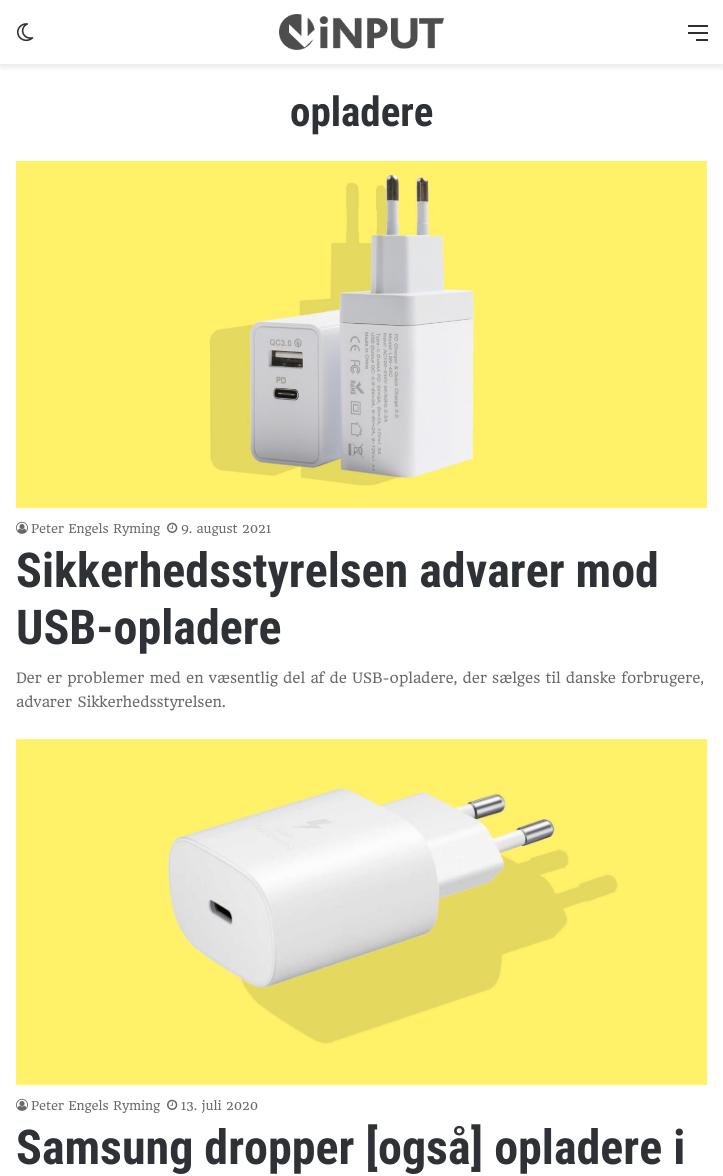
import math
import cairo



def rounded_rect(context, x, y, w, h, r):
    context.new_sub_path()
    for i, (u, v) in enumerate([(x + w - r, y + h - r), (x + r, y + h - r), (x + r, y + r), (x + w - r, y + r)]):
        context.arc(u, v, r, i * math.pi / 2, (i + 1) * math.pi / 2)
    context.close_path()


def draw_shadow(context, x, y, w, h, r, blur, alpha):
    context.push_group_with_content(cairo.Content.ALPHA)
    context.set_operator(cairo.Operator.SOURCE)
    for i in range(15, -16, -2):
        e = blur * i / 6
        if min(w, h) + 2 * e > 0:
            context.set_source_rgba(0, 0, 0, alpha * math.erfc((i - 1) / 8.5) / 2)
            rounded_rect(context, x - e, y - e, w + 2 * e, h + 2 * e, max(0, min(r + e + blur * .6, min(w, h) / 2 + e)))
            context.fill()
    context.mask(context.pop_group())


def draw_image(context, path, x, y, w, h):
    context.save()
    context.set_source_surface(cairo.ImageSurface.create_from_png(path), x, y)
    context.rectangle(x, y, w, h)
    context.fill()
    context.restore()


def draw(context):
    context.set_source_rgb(1, 1, 1)
    context.paint()
    context.save()
    context.rectangle(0, 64, 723, 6)
    context.clip()
    context.set_source_rgb(0, 0, 0)
    draw_shadow(context, 0, 3, 723, 64, 0, 3.5, 0.1)
    context.restore()
    draw_image(context, "images/1.png", 17, 23, 17, 19)
    draw_image(context, "images/2.png", 279, 14, 165, 36)
    context.set_source_rgb(44 / 255, 47 / 255, 52 / 255)
    context.rectangle(688, 32, 20, 2)
    context.fill()
    context.rectangle(688, 25, 20, 2)
    context.fill()
    context.rectangle(696, 39, 12, 2)
    context.fill()
    draw_image(context, "images/3.png", 15, 161, 692, 347)
    draw_image(context, "images/4.png", 16, 521, 12, 13)
    draw_image(context, "images/5.png", 167, 522, 11, 11)
    draw_image(context, "images/6.png", 16, 739, 692, 347)
    draw_image(context, "images/4.png", 16, 1098, 12, 13)
    draw_image(context, "images/5.png", 167, 1099, 11, 11)
    context.select_font_face("Roboto Condensed", cairo.FontSlant.NORMAL, cairo.FontWeight.BOLD)
    context.set_font_size(41)
    context.set_source_rgb(46 / 255, 49 / 255, 54 / 255)
    context.move_to(290, 126)
    context.show_text("opladere")
    context.select_font_face("HeadlandOne")
    context.set_font_size(12)
    context.set_source_rgb(104 / 255, 104 / 255, 104 / 255)
    context.move_to(31, 533)
    context.show_text("Peter Engels Ryming")
    context.move_to(181, 533)
    context.show_text("9. august 2021")
    context.select_font_face("Roboto Condensed", cairo.FontSlant.NORMAL, cairo.FontWeight.BOLD)
    context.set_font_size(48)
    context.set_source_rgb(46 / 255, 49 / 255, 54 / 255)
    context.move_to(16, 587)
    context.show_text("Sikkerhedsstyrelsen advarer mod")
    context.move_to(16, 644)
    context.show_text("USB-opladere")
    context.select_font_face("HeadlandOne")
    context.set_font_size(14)
    context.set_source_rgb(104 / 255, 104 / 255, 104 / 255)
    context.move_to(16, 683)
    context.show_text("Der er problemer med en væsentlig del af de USB-opladere, der sælges til danske forbrugere,")
    context.move_to(16, 707)
    context.show_text("advarer Sikkerhedsstyrelsen.")
    context.set_font_size(12)
    context.move_to(31, 1110)
    context.show_text("Peter Engels Ryming")
    context.move_to(181, 1110)
    context.show_text("13. juli 2020")
    context.select_font_face("Roboto Condensed", cairo.FontSlant.NORMAL, cairo.FontWeight.BOLD)
    context.set_font_size(48)
    context.set_source_rgb(46 / 255, 49 / 255, 54 / 255)
    context.move_to(16, 1164)
    context.show_text("Samsung dropper [også] opladere i")


surface = cairo.ImageSurface(cairo.Format.RGB24, 723, 1176)
context = cairo.Context(surface)
options = cairo.FontOptions()
options.set_hint_metrics(cairo.HintMetrics.OFF)
options.set_hint_style(cairo.HintStyle.NONE)
context.set_font_options(options)
context.set_miter_limit(4)
draw(context)
surface.write_to_png("out.png")
